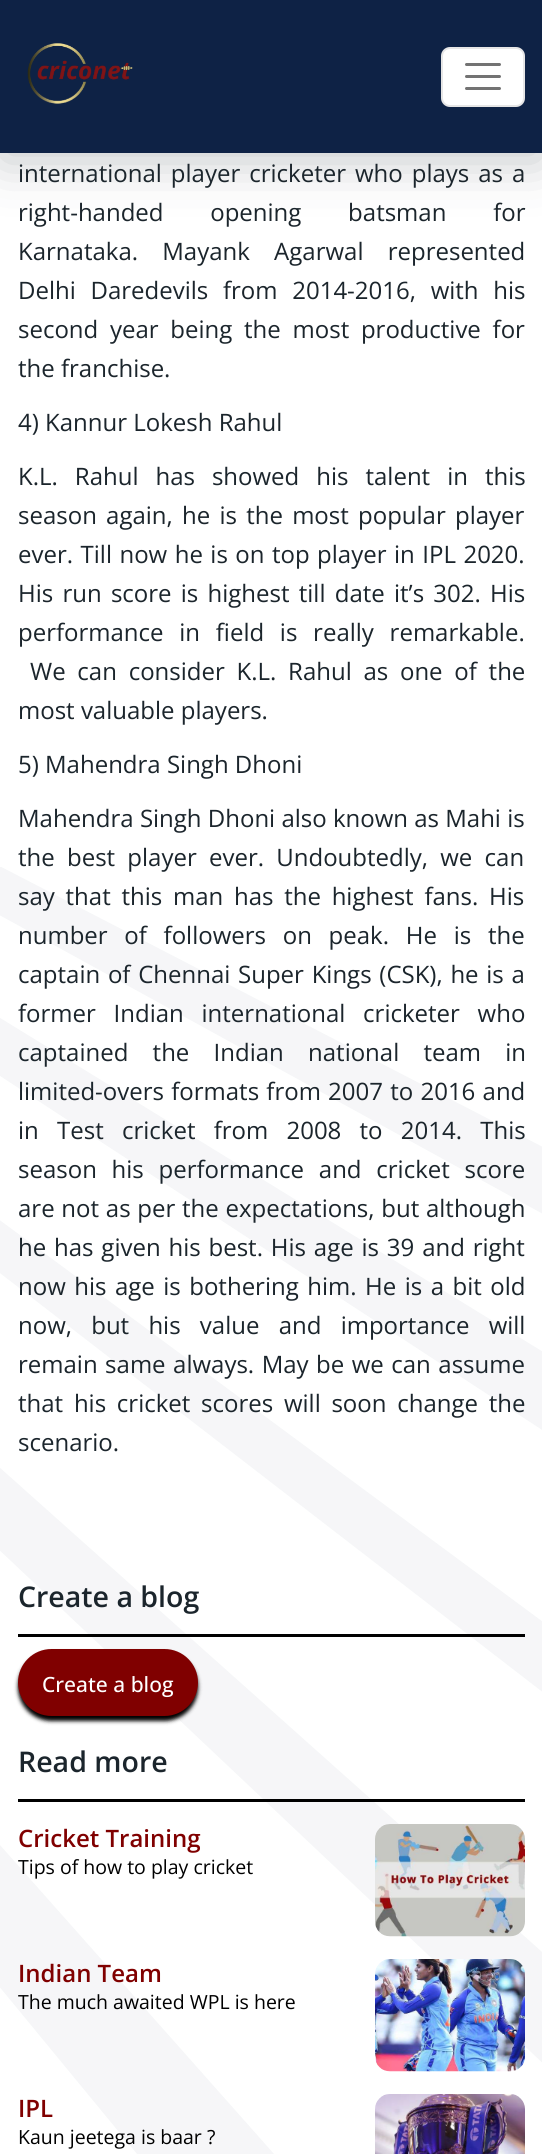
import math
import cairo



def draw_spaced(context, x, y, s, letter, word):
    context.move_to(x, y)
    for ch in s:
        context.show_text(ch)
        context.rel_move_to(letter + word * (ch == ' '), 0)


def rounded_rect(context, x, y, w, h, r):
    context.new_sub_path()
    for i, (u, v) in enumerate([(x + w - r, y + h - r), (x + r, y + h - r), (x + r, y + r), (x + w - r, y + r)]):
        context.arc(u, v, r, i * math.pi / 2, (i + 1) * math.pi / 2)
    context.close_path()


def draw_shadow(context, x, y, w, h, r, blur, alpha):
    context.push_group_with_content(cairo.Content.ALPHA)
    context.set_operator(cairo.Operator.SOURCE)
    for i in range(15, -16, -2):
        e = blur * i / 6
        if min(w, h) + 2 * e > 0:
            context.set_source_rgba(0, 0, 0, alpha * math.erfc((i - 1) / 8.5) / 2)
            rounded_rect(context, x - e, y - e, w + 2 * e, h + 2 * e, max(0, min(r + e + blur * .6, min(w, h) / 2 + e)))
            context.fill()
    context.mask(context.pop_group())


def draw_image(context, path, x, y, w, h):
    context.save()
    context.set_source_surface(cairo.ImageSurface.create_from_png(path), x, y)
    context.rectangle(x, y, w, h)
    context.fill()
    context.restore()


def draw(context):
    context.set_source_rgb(1, 1, 1)
    context.paint()
    context.set_source_rgb(27 / 255, 37 / 255, 44 / 255)
    draw_shadow(context, 0, 8, 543, 153, 0, 26, 0.25)
    context.set_source_rgb(14 / 255, 34 / 255, 69 / 255)
    context.rectangle(0, 0, 542, 153)
    context.fill()
    draw_image(context, "images/1.png", 27, 43, 106, 61)
    context.set_source_rgb(1, 1, 1)
    rounded_rect(context, 441, 47, 84, 60, 9)
    context.fill()
    rounded_rect(context, 442, 48, 82, 58, 8)
    context.set_source_rgba(0, 0, 0, 0.1)
    context.stroke()
    context.new_path()
    context.move_to(466.5, 64.5)
    context.line_to(499.5, 64.5)
    context.move_to(466.5, 76.5)
    context.line_to(499.5, 76.5)
    context.move_to(466.5, 88.5)
    context.line_to(499.5, 88.5)
    context.set_source_rgb(115 / 255, 115 / 255, 115 / 255)
    context.set_line_width(3)
    context.set_line_cap(cairo.LineCap.ROUND)
    context.stroke()
    draw_image(context, "images/5.png", 0, 867, 542, 1287)
    context.set_source_rgb(0, 0, 0)
    context.rectangle(18, 1634, 507, 3)
    context.fill()
    context.set_source_rgb(0, 0, 0)
    draw_shadow(context, 18, 1653, 180, 68, 34, 2, 1)
    context.set_source_rgb(128 / 255, 0, 0)
    rounded_rect(context, 19, 1650, 178, 65, 32.5)
    context.fill_preserve()
    context.set_line_width(2)
    context.set_line_cap(cairo.LineCap.BUTT)
    context.stroke()
    context.set_source_rgb(0, 0, 0)
    context.rectangle(18, 1799, 507, 3)
    context.fill()
    draw_image(context, "images/2.png", 375, 1824, 150, 113)
    draw_image(context, "images/3.png", 375, 1959, 150, 113)
    draw_image(context, "images/4.png", 375, 2094, 150, 60)
    context.select_font_face("Open Sans")
    context.set_font_size(24)
    context.set_source_rgb(27 / 255, 37 / 255, 44 / 255)
    draw_spaced(context, 18, 182, "international player cricketer who plays as a", 0, 2.75)
    draw_spaced(context, 18, 221, "right-handed opening batsman for", 0, 40.5)
    draw_spaced(context, 18, 260, "Karnataka. Mayank Agarwal represented", 0, 18)
    draw_spaced(context, 18, 299, "Delhi Daredevils from 2014-2016, with his", 0, 8.5)
    draw_spaced(context, 18, 338, "second year being the most productive for", 0, 5.5)
    context.move_to(18, 377)
    context.show_text("the franchise.")
    context.move_to(18, 431)
    context.show_text("4) Kannur Lokesh Rahul")
    draw_spaced(context, 18, 485, "K.L. Rahul has showed his talent in this", 0, 10.75)
    draw_spaced(context, 18, 524, "season again, he is the most popular player", 0, 3)
    draw_spaced(context, 18, 563, "ever. Till now he is on top player in IPL 2020.", 0, 1.25)
    draw_spaced(context, 18, 602, "His run score is highest till date it’s 302. His", 0, 3)
    draw_spaced(context, 18, 641, "performance in field is really remarkable.", 0, 9.5)
    draw_spaced(context, 30, 680, "We can consider K.L. Rahul as one of the", 0, 5.5)
    context.move_to(18, 719)
    context.show_text("most valuable players.")
    context.move_to(18, 773)
    context.show_text("5) Mahendra Singh Dhoni")
    context.move_to(18, 827)
    context.show_text("Mahendra Singh Dhoni also known as Mahi is")
    draw_spaced(context, 18, 866, "the best player ever. Undoubtedly, we can", 0, 6)
    draw_spaced(context, 18, 905, "say that this man has the highest fans. His", 0, 4.5)
    draw_spaced(context, 18, 944, "number of followers on peak. He is the", 0, 10.5)
    draw_spaced(context, 18, 983, "captain of Chennai Super Kings (CSK), he is a", 0, 1.5)
    draw_spaced(context, 18, 1022, "former Indian international cricketer who", 0, 11.5)
    draw_spaced(context, 18, 1061, "captained the Indian national team in", 0, 18)
    draw_spaced(context, 18, 1100, "limited-overs formats from 2007 to 2016 and", 0, 1)
    draw_spaced(context, 18, 1139, "in Test cricket from 2008 to 2014. This", 0, 12)
    draw_spaced(context, 18, 1178, "season his performance and cricket score", 0, 8.5)
    draw_spaced(context, 18, 1217, "are not as per the expectations, but although", 0, 0.5)
    draw_spaced(context, 18, 1256, "he has given his best. His age is 39 and right", 0, 1.6)
    draw_spaced(context, 18, 1295, "now his age is bothering him. He is a bit old", 0, 2.25)
    draw_spaced(context, 18, 1334, "now, but his value and importance will", 0, 13)
    draw_spaced(context, 18, 1373, "remain same always. May be we can assume", 0, 1.25)
    draw_spaced(context, 18, 1412, "that his cricket scores will soon change the", 0, 4.5)
    context.move_to(18, 1451)
    context.show_text("scenario.")
    context.select_font_face("Open Sans SemiBold")
    context.set_font_size(28.5)
    context.move_to(18, 1607)
    context.show_text("Create a blog")
    context.select_font_face("Open Sans Medium")
    context.set_font_size(21)
    context.set_source_rgb(1, 1, 1)
    context.move_to(42, 1692)
    context.show_text("Create a blog")
    context.select_font_face("Open Sans SemiBold")
    context.set_font_size(28.5)
    context.set_source_rgb(27 / 255, 37 / 255, 44 / 255)
    context.move_to(18, 1772)
    context.show_text("Read more")
    context.set_font_size(24)
    context.set_source_rgb(128 / 255, 0, 0)
    context.move_to(18, 1847)
    context.show_text("Cricket Training")
    context.select_font_face("Open Sans")
    context.set_font_size(19.5)
    context.set_source_rgb(0, 0, 0)
    context.move_to(18, 1874)
    context.show_text("Tips of how to play cricket")
    context.select_font_face("Open Sans SemiBold")
    context.set_font_size(24)
    context.set_source_rgb(128 / 255, 0, 0)
    context.move_to(18, 1982)
    context.show_text("Indian Team")
    context.select_font_face("Open Sans")
    context.set_font_size(19.5)
    context.set_source_rgb(0, 0, 0)
    context.move_to(18, 2009)
    context.show_text("The much awaited WPL is here")
    context.select_font_face("Open Sans SemiBold")
    context.set_font_size(24)
    context.set_source_rgb(128 / 255, 0, 0)
    context.move_to(18, 2117)
    context.show_text("IPL")
    context.select_font_face("Open Sans")
    context.set_font_size(19.5)
    context.set_source_rgb(0, 0, 0)
    context.move_to(18, 2144)
    context.show_text("Kaun jeetega is baar ?")


surface = cairo.ImageSurface(cairo.Format.RGB24, 542, 2154)
context = cairo.Context(surface)
options = cairo.FontOptions()
options.set_hint_metrics(cairo.HintMetrics.OFF)
options.set_hint_style(cairo.HintStyle.NONE)
context.set_font_options(options)
context.set_miter_limit(4)
draw(context)
surface.write_to_png("out.png")
